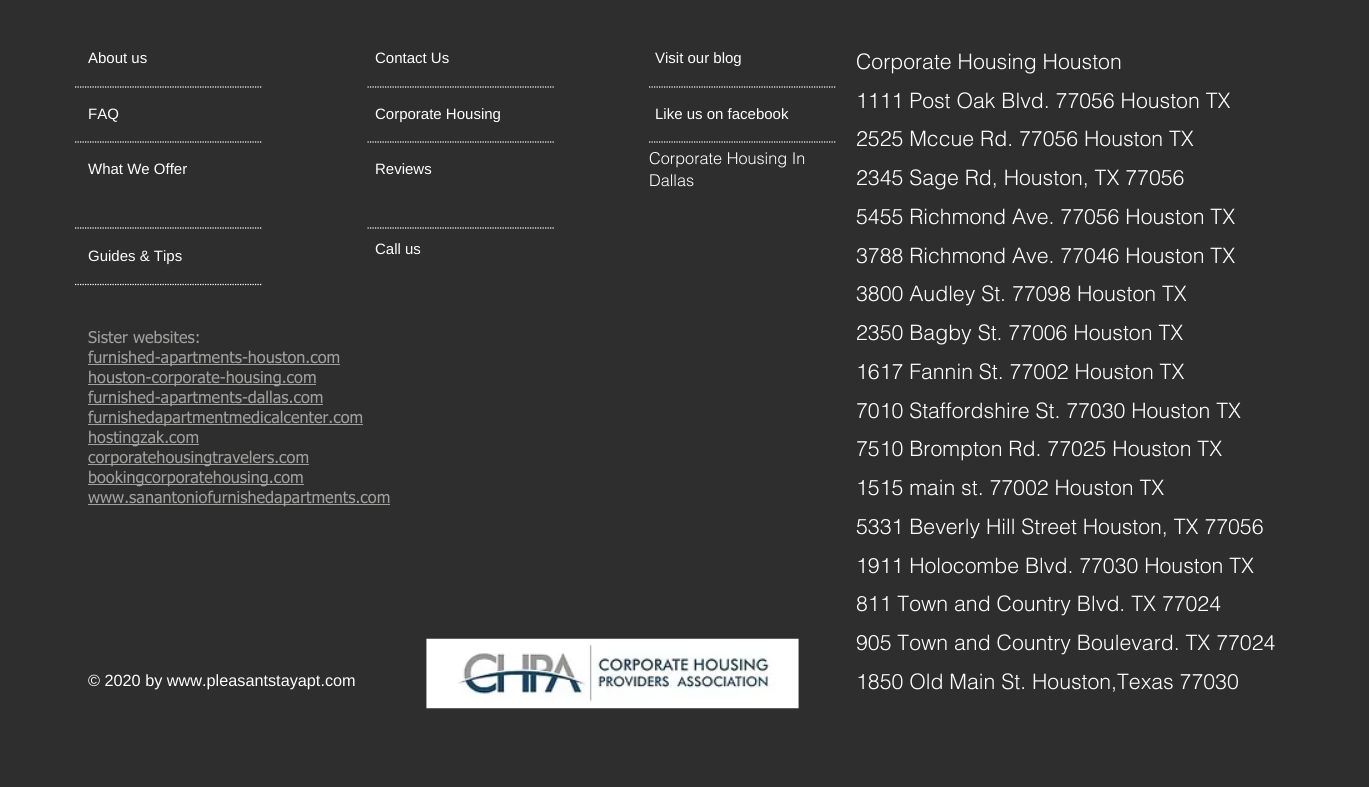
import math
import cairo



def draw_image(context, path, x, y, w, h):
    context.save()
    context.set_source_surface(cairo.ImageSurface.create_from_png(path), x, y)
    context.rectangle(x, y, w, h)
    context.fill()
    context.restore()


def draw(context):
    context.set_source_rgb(47 / 255, 46 / 255, 46 / 255)
    context.paint()
    context.new_path()
    context.move_to(75, 87)
    context.line_to(262.5, 87)
    context.set_source_rgb(1, 1, 1)
    context.set_line_width(1.2)
    context.set_dash([1.25, 1.25])
    context.stroke()
    context.new_path()
    context.move_to(367.5, 87)
    context.line_to(555, 87)
    context.stroke()
    context.new_path()
    context.move_to(649, 87)
    context.line_to(836, 87)
    context.stroke()
    context.new_path()
    context.move_to(75, 142)
    context.line_to(262.5, 142)
    context.stroke()
    context.new_path()
    context.move_to(367.5, 142)
    context.line_to(555, 142)
    context.stroke()
    context.new_path()
    context.move_to(649, 142)
    context.line_to(836, 142)
    context.stroke()
    context.new_path()
    context.move_to(75, 228)
    context.line_to(262.5, 228)
    context.stroke()
    context.new_path()
    context.move_to(367.5, 228)
    context.line_to(555, 228)
    context.stroke()
    context.new_path()
    context.move_to(75, 284.5)
    context.line_to(262.5, 284.5)
    context.stroke()
    context.set_source_rgb(160 / 255, 160 / 255, 159 / 255)
    context.rectangle(88, 364, 252, 1)
    context.fill()
    context.rectangle(88, 384, 228, 1)
    context.fill()
    context.rectangle(88, 404, 235, 1)
    context.fill()
    context.rectangle(88, 424, 275, 1)
    context.fill()
    context.rectangle(88, 444, 111, 1)
    context.fill()
    context.rectangle(88, 464, 221, 1)
    context.fill()
    context.rectangle(88, 484, 216, 1)
    context.fill()
    context.rectangle(88, 504, 302, 1)
    context.fill()
    draw_image(context, "images/1.png", 426, 638, 373, 71)
    context.select_font_face("Liberation Sans")
    context.set_font_size(15)
    context.set_source_rgb(1, 1, 1)
    context.move_to(88, 63)
    context.show_text("About us")
    context.move_to(375, 63)
    context.show_text("Contact Us")
    context.move_to(655, 63)
    context.show_text("Visit our blog")
    context.select_font_face("helvetica Light")
    context.set_font_size(21.25)
    context.move_to(856, 69)
    context.show_text("Corporate Housing Houston")
    context.move_to(856, 108)
    context.show_text("1111 Post Oak Blvd. 77056 Houston TX")
    context.move_to(856, 146)
    context.show_text("2525 Mccue Rd. 77056 Houston TX")
    context.move_to(856, 185)
    context.show_text("2345 Sage Rd, Houston, TX 77056")
    context.move_to(856, 224)
    context.show_text("5455 Richmond Ave. 77056 Houston TX")
    context.move_to(856, 263)
    context.show_text("3788 Richmond Ave. 77046 Houston TX")
    context.move_to(856, 301)
    context.show_text("3800 Audley St. 77098 Houston TX")
    context.move_to(856, 340)
    context.show_text("2350 Bagby St. 77006 Houston TX")
    context.move_to(856, 379)
    context.show_text("1617 Fannin St. 77002 Houston TX")
    context.move_to(856, 418)
    context.show_text("7010 Staffordshire St. 77030 Houston TX")
    context.move_to(856, 456)
    context.show_text("7510 Brompton Rd. 77025 Houston TX")
    context.move_to(856, 495)
    context.show_text("1515 main st. 77002 Houston TX")
    context.move_to(856, 534)
    context.show_text("5331 Beverly Hill Street Houston, TX 77056")
    context.move_to(856, 573)
    context.show_text("1911 Holocombe Blvd. 77030 Houston TX")
    context.move_to(856, 611)
    context.show_text("811 Town and Country Blvd. TX 77024")
    context.move_to(856, 650)
    context.show_text("905 Town and Country Boulevard. TX 77024")
    context.move_to(856, 689)
    context.show_text("1850 Old Main St. Houston,Texas 77030")
    context.select_font_face("Liberation Sans")
    context.set_font_size(15)
    context.move_to(88, 119)
    context.show_text("FAQ")
    context.move_to(375, 119)
    context.show_text("Corporate Housing")
    context.move_to(655, 119)
    context.show_text("Like us on facebook")
    context.move_to(88, 174)
    context.show_text("What We Offer")
    context.move_to(375, 174)
    context.show_text("Reviews")
    context.select_font_face("helvetica Light")
    context.set_font_size(16.25)
    context.move_to(649, 164)
    context.show_text("Corporate Housing In")
    context.move_to(649, 186)
    context.show_text("Dallas")
    context.select_font_face("Liberation Sans")
    context.set_font_size(15)
    context.move_to(88, 261)
    context.show_text("Guides & Tips")
    context.move_to(375, 254)
    context.show_text("Call us")
    context.select_font_face("tahoma")
    context.set_font_size(16.25)
    context.set_source_rgb(160 / 255, 160 / 255, 159 / 255)
    context.move_to(88, 343)
    context.show_text("Sister websites:")
    context.move_to(88, 363)
    context.show_text("furnished-apartments-houston.com")
    context.move_to(88, 383)
    context.show_text("houston-corporate-housing.com")
    context.move_to(88, 403)
    context.show_text("furnished-apartments-dallas.com")
    context.move_to(88, 423)
    context.show_text("furnishedapartmentmedicalcenter.com")
    context.move_to(88, 443)
    context.show_text("hostingzak.com")
    context.move_to(88, 463)
    context.show_text("corporatehousingtravelers.com")
    context.move_to(88, 483)
    context.show_text("bookingcorporatehousing.com")
    context.move_to(88, 503)
    context.show_text("www.sanantoniofurnishedapartments.com")
    context.select_font_face("Liberation Sans")
    context.set_source_rgb(1, 1, 1)
    context.move_to(88, 686)
    context.show_text("© 2020 by www.pleasantstayapt.com")


surface = cairo.ImageSurface(cairo.Format.RGB24, 1369, 787)
context = cairo.Context(surface)
options = cairo.FontOptions()
options.set_hint_metrics(cairo.HintMetrics.OFF)
options.set_hint_style(cairo.HintStyle.NONE)
context.set_font_options(options)
context.set_miter_limit(4)
draw(context)
surface.write_to_png("out.png")
